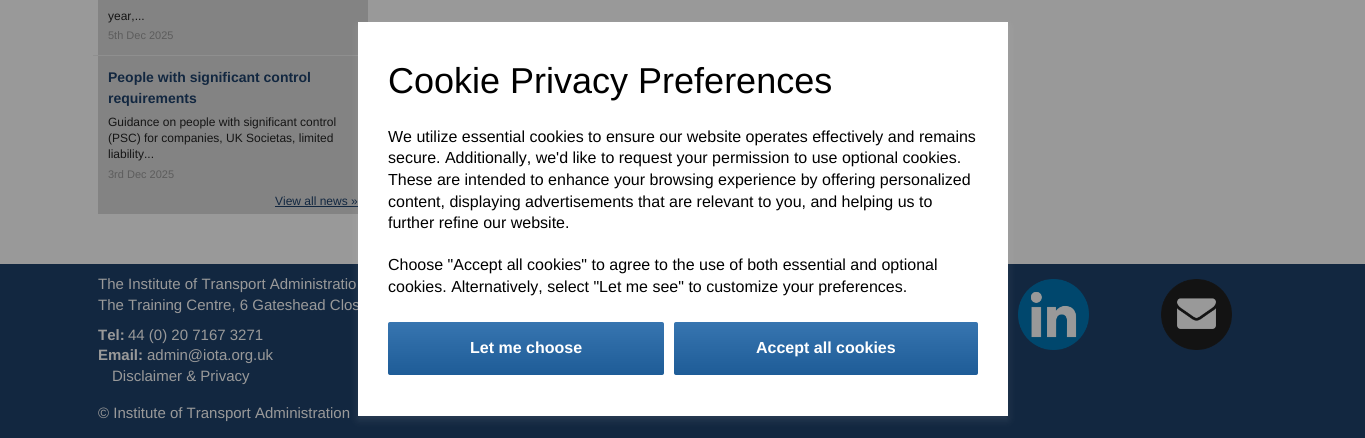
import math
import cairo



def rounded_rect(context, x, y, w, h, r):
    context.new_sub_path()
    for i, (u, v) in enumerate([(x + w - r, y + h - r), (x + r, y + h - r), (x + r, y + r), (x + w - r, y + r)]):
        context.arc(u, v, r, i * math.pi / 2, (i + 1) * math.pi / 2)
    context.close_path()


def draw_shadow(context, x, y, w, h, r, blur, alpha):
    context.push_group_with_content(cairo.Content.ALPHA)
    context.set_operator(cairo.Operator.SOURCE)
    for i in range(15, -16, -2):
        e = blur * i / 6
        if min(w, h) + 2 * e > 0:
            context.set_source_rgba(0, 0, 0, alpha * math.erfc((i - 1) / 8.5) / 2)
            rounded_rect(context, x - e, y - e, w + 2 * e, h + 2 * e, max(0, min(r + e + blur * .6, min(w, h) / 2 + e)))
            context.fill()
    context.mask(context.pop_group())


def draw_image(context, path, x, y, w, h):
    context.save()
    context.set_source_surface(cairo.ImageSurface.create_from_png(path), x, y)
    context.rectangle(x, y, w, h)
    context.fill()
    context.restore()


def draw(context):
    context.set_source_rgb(153 / 255, 153 / 255, 153 / 255)
    context.paint()
    context.set_source_rgb(131 / 255, 131 / 255, 131 / 255)
    context.rectangle(98, 0, 270, 214)
    context.fill()
    context.set_source_rgb(143 / 255, 143 / 255, 143 / 255)
    context.rectangle(93, 55, 265, 1)
    context.fill()
    context.set_source_rgb(18 / 255, 39 / 255, 64 / 255)
    context.rectangle(275, 206, 83, 1)
    context.fill()
    context.rectangle(0, 264, 1365, 174)
    context.fill()
    draw_image(context, "images/1.png", 1018, 279, 71, 71)
    context.set_source_rgb(1, 1, 1)
    draw_shadow(context, 358, 26, 650, 394, 0, 4, 0.1)
    draw_image(context, "images/2.png", 1161, 279, 71, 71)
    context.select_font_face("Liberation Sans")
    context.set_font_size(12)
    context.set_source_rgb(20 / 255, 20 / 255, 20 / 255)
    context.move_to(108, 20)
    context.show_text("year,...")
    context.set_font_size(11)
    context.set_source_rgb(92 / 255, 92 / 255, 92 / 255)
    context.move_to(108, 39)
    context.show_text("5th Dec 2025")
    context.select_font_face("Liberation Sans", cairo.FontSlant.NORMAL, cairo.FontWeight.BOLD)
    context.set_font_size(14)
    context.set_source_rgb(18 / 255, 39 / 255, 64 / 255)
    context.move_to(108, 82)
    context.show_text("People with significant control")
    context.move_to(108, 103)
    context.show_text("requirements")
    context.select_font_face("Liberation Sans")
    context.set_font_size(12)
    context.set_source_rgb(20 / 255, 20 / 255, 20 / 255)
    context.move_to(108, 126)
    context.show_text("Guidance on people with significant control")
    context.move_to(108, 142)
    context.show_text("(PSC) for companies, UK Societas, limited")
    context.move_to(108, 158)
    context.show_text("liability...")
    context.set_font_size(11)
    context.set_source_rgb(92 / 255, 92 / 255, 92 / 255)
    context.move_to(108, 178)
    context.show_text("3rd Dec 2025")
    context.set_font_size(12)
    context.set_source_rgb(18 / 255, 39 / 255, 64 / 255)
    context.move_to(275, 205)
    context.show_text("View all news »")
    context.set_font_size(15)
    context.set_source_rgb(153 / 255, 153 / 255, 153 / 255)
    context.move_to(98, 289)
    context.show_text("The Institute of Transport Administratio")
    context.move_to(98, 310)
    context.show_text("The Training Centre, 6 Gateshead Clos")
    context.set_source_rgb(1, 1, 1)
    context.rectangle(358, 22, 650, 394)
    context.fill()
    gradient = cairo.LinearGradient(826, 322, 826, 375)
    gradient.add_color_stop_rgba(0, 55 / 255, 117 / 255, 176 / 255, 1)
    gradient.add_color_stop_rgba(1, 30 / 255, 92 / 255, 151 / 255, 1)
    context.set_source(gradient)
    rounded_rect(context, 674, 322, 304, 53, 2)
    context.fill()
    context.select_font_face("Liberation Sans", cairo.FontSlant.NORMAL, cairo.FontWeight.BOLD)
    context.set_font_size(16)
    context.set_source_rgb(1, 1, 1)
    context.move_to(756, 353)
    context.show_text("Accept all cookies")
    gradient = cairo.LinearGradient(526, 322, 526, 375)
    gradient.add_color_stop_rgba(0, 55 / 255, 117 / 255, 176 / 255, 1)
    gradient.add_color_stop_rgba(1, 30 / 255, 92 / 255, 151 / 255, 1)
    context.set_source(gradient)
    rounded_rect(context, 388, 322, 276, 53, 2)
    context.fill()
    context.set_source_rgb(1, 1, 1)
    context.move_to(470, 353)
    context.show_text("Let me choose")
    context.select_font_face("Liberation Sans")
    context.set_source_rgb(0, 0, 0)
    context.move_to(388, 292)
    context.show_text("cookies. Alternatively, select \"Let me see\" to customize your preferences.")
    context.move_to(388, 270)
    context.show_text("Choose \"Accept all cookies\" to agree to the use of both essential and optional")
    context.move_to(388, 228)
    context.show_text("further refine our website.")
    context.move_to(388, 207)
    context.show_text("content, displaying advertisements that are relevant to you, and helping us to")
    context.move_to(388, 185)
    context.show_text("These are intended to enhance your browsing experience by offering personalized")
    context.move_to(388, 163)
    context.show_text("secure. Additionally, we'd like to request your permission to use optional cookies.")
    context.move_to(388, 142)
    context.show_text("We utilize essential cookies to ensure our website operates effectively and remains")
    context.set_font_size(36)
    context.move_to(388, 93)
    context.show_text("Cookie Privacy Preferences")
    context.select_font_face("Liberation Sans", cairo.FontSlant.NORMAL, cairo.FontWeight.BOLD)
    context.set_font_size(15)
    context.set_source_rgb(153 / 255, 153 / 255, 153 / 255)
    context.move_to(98, 340)
    context.show_text("Tel:")
    context.select_font_face("Liberation Sans")
    context.move_to(128, 340)
    context.show_text("44 (0) 20 7167 3271")
    context.select_font_face("Liberation Sans", cairo.FontSlant.NORMAL, cairo.FontWeight.BOLD)
    context.move_to(98, 360)
    context.show_text("Email:")
    context.select_font_face("Liberation Sans")
    context.move_to(147, 360)
    context.show_text("admin@iota.org.uk")
    context.move_to(112, 381)
    context.show_text("Disclaimer & Privacy")
    context.move_to(98, 418)
    context.show_text("© Institute of Transport Administration")


surface = cairo.ImageSurface(cairo.Format.RGB24, 1365, 438)
context = cairo.Context(surface)
options = cairo.FontOptions()
options.set_hint_metrics(cairo.HintMetrics.OFF)
options.set_hint_style(cairo.HintStyle.NONE)
context.set_font_options(options)
context.set_miter_limit(4)
draw(context)
surface.write_to_png("out.png")
